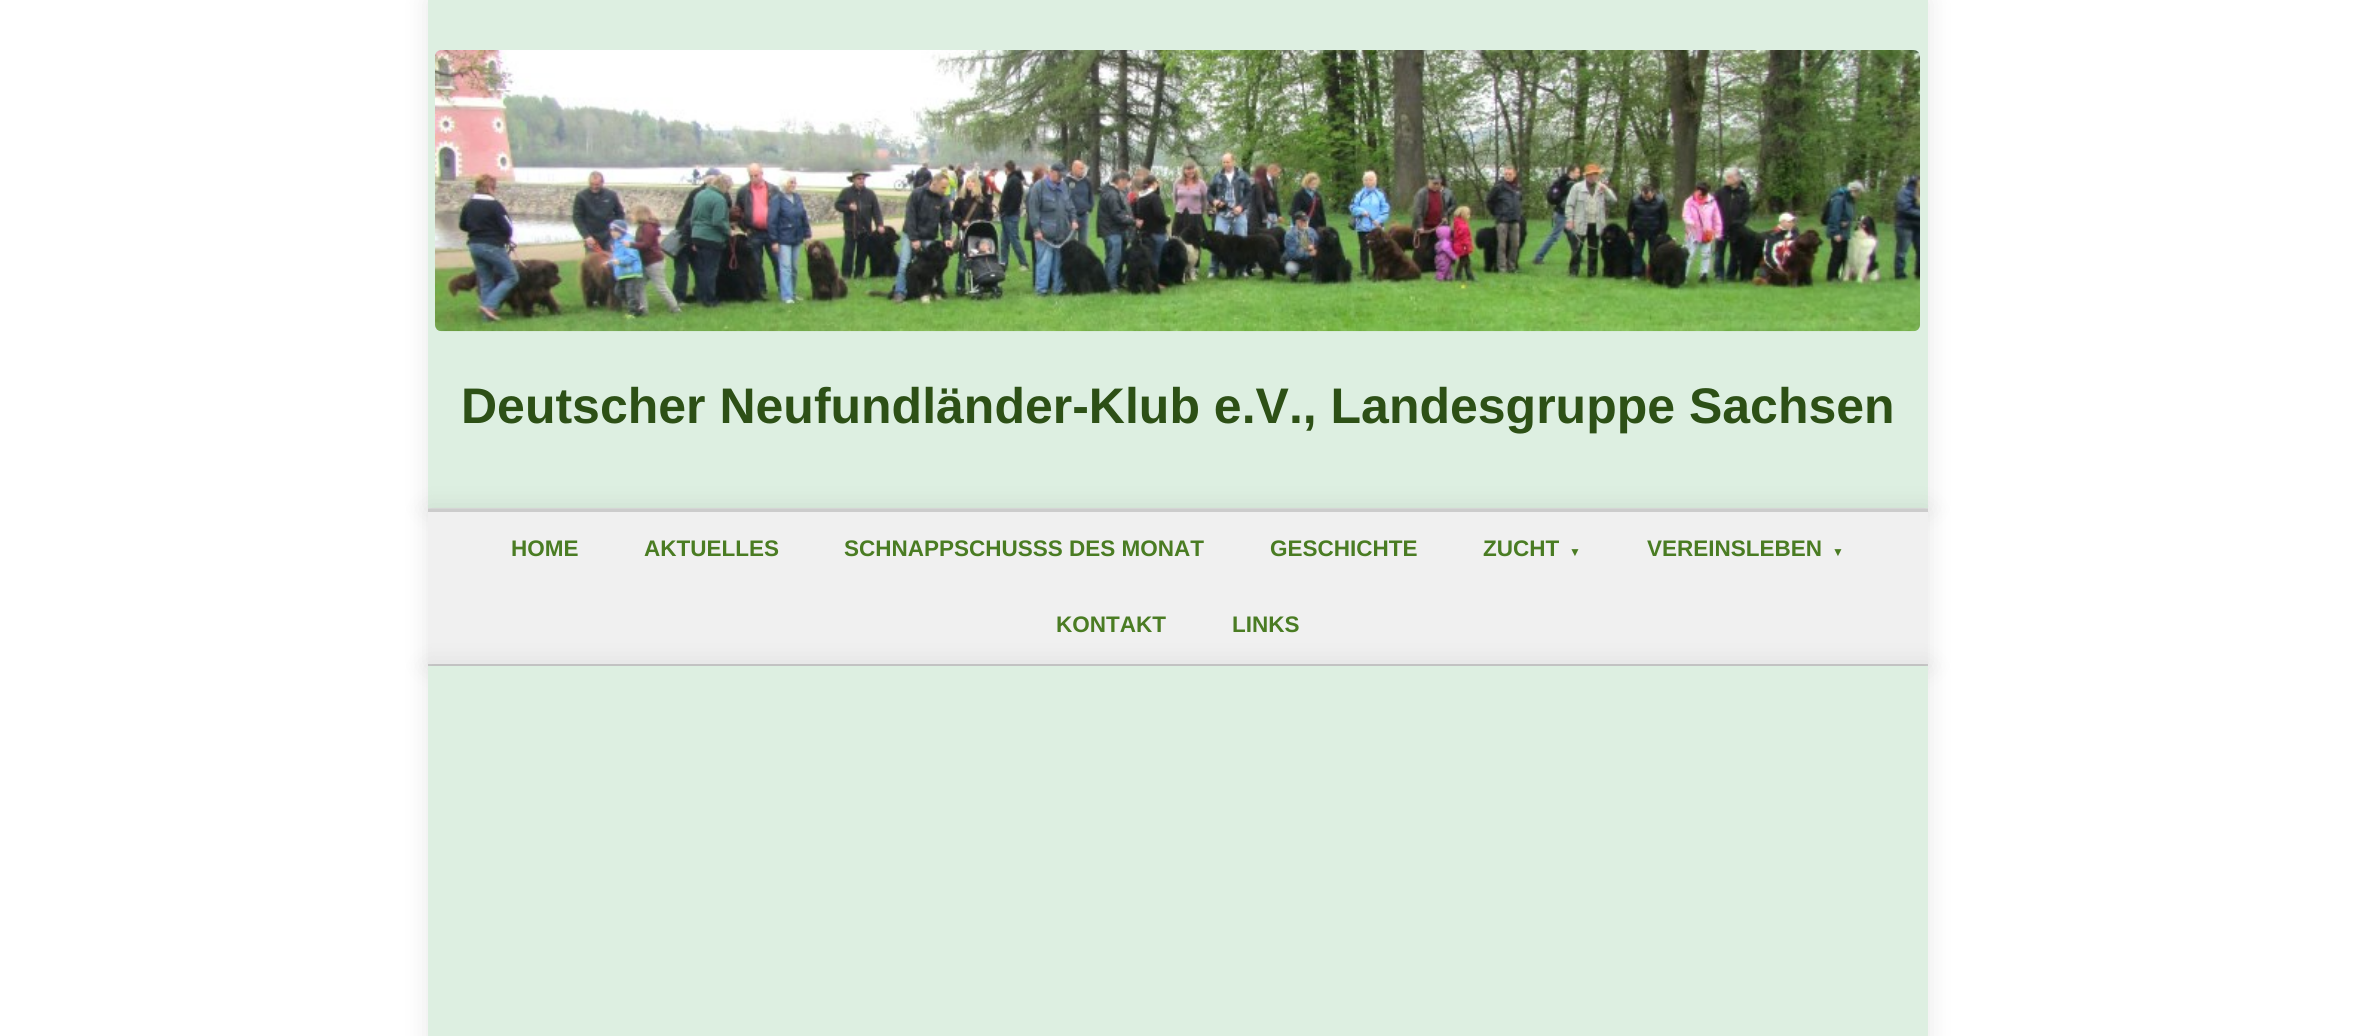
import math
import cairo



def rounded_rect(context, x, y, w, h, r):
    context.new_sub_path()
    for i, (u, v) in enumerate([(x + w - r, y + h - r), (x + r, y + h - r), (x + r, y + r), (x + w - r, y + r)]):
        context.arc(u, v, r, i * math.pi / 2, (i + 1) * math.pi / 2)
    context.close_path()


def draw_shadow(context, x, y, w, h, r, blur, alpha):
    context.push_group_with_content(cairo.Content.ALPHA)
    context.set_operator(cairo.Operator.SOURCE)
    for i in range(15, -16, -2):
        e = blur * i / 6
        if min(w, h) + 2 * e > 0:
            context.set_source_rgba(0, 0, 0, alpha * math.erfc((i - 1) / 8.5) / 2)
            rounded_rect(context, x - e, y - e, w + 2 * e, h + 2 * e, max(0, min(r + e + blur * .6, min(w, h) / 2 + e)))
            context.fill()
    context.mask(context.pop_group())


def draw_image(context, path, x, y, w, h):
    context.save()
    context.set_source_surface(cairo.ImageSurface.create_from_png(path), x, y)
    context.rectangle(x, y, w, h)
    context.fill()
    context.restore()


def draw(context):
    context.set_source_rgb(1, 1, 1)
    context.paint()
    context.set_source_rgb(0, 0, 0)
    draw_shadow(context, 428, 0, 1500, 509, 0, 12.5, 0.1)
    context.set_source_rgb(221 / 255, 239 / 255, 225 / 255)
    context.rectangle(428, 0, 1500, 508)
    context.fill()
    context.set_source_rgb(224 / 255, 224 / 255, 224 / 255)
    context.rectangle(428, 508, 1500, 1)
    context.fill()
    draw_image(context, "images/1.png", 435, 50, 1485, 282)
    context.set_source_rgb(0, 0, 0)
    draw_shadow(context, 428, 509, 1500, 157, 0, 12.5, 0.1)
    context.set_source_rgb(240 / 255, 240 / 255, 240 / 255)
    context.rectangle(428, 512, 1500, 152)
    context.fill()
    context.set_source_rgb(204 / 255, 204 / 255, 204 / 255)
    context.rectangle(428, 509, 1500, 3)
    context.fill()
    context.rectangle(428, 664, 1500, 2)
    context.fill()
    context.set_source_rgb(0, 0, 0)
    draw_shadow(context, 428, 666, 1500, 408, 0, 12.5, 0.1)
    context.set_source_rgb(221 / 255, 239 / 255, 225 / 255)
    context.rectangle(428, 666, 1500, 370)
    context.fill()
    context.select_font_face("Liberation Sans", cairo.FontSlant.NORMAL, cairo.FontWeight.BOLD)
    context.set_font_size(50)
    context.set_source_rgb(45 / 255, 80 / 255, 22 / 255)
    context.move_to(461, 423)
    context.show_text("Deutscher Neufundländer-Klub e.V., Landesgruppe Sachsen")
    context.set_font_size(22.5)
    context.set_source_rgb(74 / 255, 124 / 255, 35 / 255)
    context.move_to(511, 556)
    context.show_text("HOME")
    context.move_to(644, 556)
    context.show_text("AKTUELLES")
    context.move_to(844, 556)
    context.show_text("SCHNAPPSCHUSSS DES MONAT")
    context.move_to(1270, 556)
    context.show_text("GESCHICHTE")
    context.move_to(1483, 556)
    context.show_text("ZUCHT")
    context.set_font_size(12)
    context.move_to(1569, 556)
    context.show_text("▼")
    context.set_font_size(22.5)
    context.move_to(1647, 556)
    context.show_text("VEREINSLEBEN")
    context.set_font_size(12)
    context.move_to(1832, 556)
    context.show_text("▼")
    context.set_font_size(22.5)
    context.move_to(1056, 632)
    context.show_text("KONTAKT")
    context.move_to(1232, 632)
    context.show_text("LINKS")


surface = cairo.ImageSurface(cairo.Format.RGB24, 2355, 1036)
context = cairo.Context(surface)
options = cairo.FontOptions()
options.set_hint_metrics(cairo.HintMetrics.OFF)
options.set_hint_style(cairo.HintStyle.NONE)
context.set_font_options(options)
context.set_miter_limit(4)
draw(context)
surface.write_to_png("out.png")
